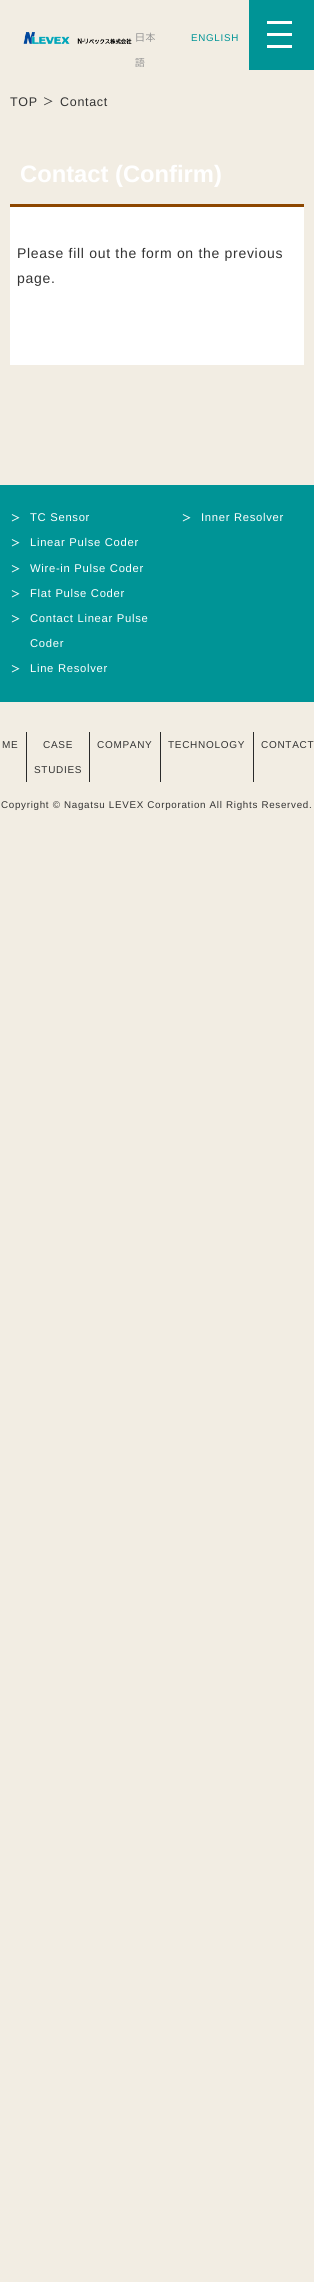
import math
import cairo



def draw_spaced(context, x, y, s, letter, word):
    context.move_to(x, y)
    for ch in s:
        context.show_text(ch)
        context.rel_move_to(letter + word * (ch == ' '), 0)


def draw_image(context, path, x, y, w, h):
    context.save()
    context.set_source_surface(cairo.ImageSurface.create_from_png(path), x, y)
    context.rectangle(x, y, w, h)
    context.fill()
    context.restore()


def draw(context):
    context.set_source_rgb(242 / 255, 237 / 255, 227 / 255)
    context.paint()
    draw_image(context, "images/1.png", 23, 32, 109, 12)
    context.set_source_rgb(0, 148 / 255, 150 / 255)
    context.rectangle(249, 0, 65, 70)
    context.fill()
    context.set_source_rgb(1, 1, 1)
    context.rectangle(267, 21, 25, 3)
    context.fill()
    context.rectangle(267, 33, 25, 3)
    context.fill()
    context.rectangle(267, 45, 25, 3)
    context.fill()
    context.set_source_rgb(141 / 255, 71 / 255, 0)
    context.rectangle(10, 204, 294, 3)
    context.fill()
    context.set_source_rgb(1, 1, 1)
    context.rectangle(10, 207, 294, 158)
    context.fill()
    context.set_source_rgb(0, 148 / 255, 150 / 255)
    context.rectangle(0, 485, 314, 217)
    context.fill()
    context.set_source_rgb(42 / 255, 42 / 255, 42 / 255)
    context.rectangle(26, 732, 1, 50)
    context.fill()
    context.rectangle(89, 732, 1, 50)
    context.fill()
    context.rectangle(160, 732, 1, 50)
    context.fill()
    context.rectangle(253, 732, 1, 50)
    context.fill()
    context.select_font_face("BIZ UDPGothic")
    context.set_font_size(9.8)
    context.set_source_rgb(147 / 255, 147 / 255, 147 / 255)
    draw_spaced(context, 135, 41, "日本", 0.7, 0)
    draw_spaced(context, 135, 66, "語", 0.7, 0)
    context.select_font_face("Liberation Sans")
    context.set_source_rgb(0, 148 / 255, 150 / 255)
    draw_spaced(context, 191, 41, "ENGLISH", 0.7, 0)
    context.set_font_size(12.5)
    context.set_source_rgb(51 / 255, 51 / 255, 51 / 255)
    draw_spaced(context, 10, 106, "TOP", 0.7, 0)
    context.select_font_face("BIZ UDPGothic")
    draw_spaced(context, 42, 106, "＞", 0.7, 0)
    context.select_font_face("Liberation Sans")
    draw_spaced(context, 60, 106, "Contact", 0.7, 0)
    context.select_font_face("Liberation Sans", cairo.FontSlant.NORMAL, cairo.FontWeight.BOLD)
    context.set_font_size(23.75)
    context.set_source_rgb(1, 1, 1)
    context.move_to(20, 182)
    context.show_text("Contact (Confirm)")
    context.select_font_face("Liberation Sans")
    context.set_font_size(14)
    context.set_source_rgb(51 / 255, 51 / 255, 51 / 255)
    draw_spaced(context, 17, 258, "Please fill out the form on the previous", 0.7, 0)
    draw_spaced(context, 17, 283, "page.", 0.7, 0)
    context.select_font_face("BIZ UDPGothic", cairo.FontSlant.NORMAL, cairo.FontWeight.BOLD)
    context.set_font_size(11.25)
    context.set_source_rgb(1, 1, 1)
    draw_spaced(context, 10, 522, "＞", 0.7, 0)
    context.select_font_face("Liberation Sans")
    draw_spaced(context, 30, 521, "TC Sensor", 0.7, 0)
    context.select_font_face("BIZ UDPGothic", cairo.FontSlant.NORMAL, cairo.FontWeight.BOLD)
    draw_spaced(context, 181, 522, "＞", 0.7, 0)
    context.select_font_face("Liberation Sans")
    draw_spaced(context, 201, 521, "Inner Resolver", 0.7, 0)
    context.select_font_face("BIZ UDPGothic", cairo.FontSlant.NORMAL, cairo.FontWeight.BOLD)
    draw_spaced(context, 10, 547, "＞", 0.7, 0)
    context.select_font_face("Liberation Sans")
    draw_spaced(context, 30, 546, "Linear Pulse Coder", 0.7, 0)
    context.select_font_face("BIZ UDPGothic", cairo.FontSlant.NORMAL, cairo.FontWeight.BOLD)
    draw_spaced(context, 10, 573, "＞", 0.7, 0)
    context.select_font_face("Liberation Sans")
    draw_spaced(context, 30, 572, "Wire-in Pulse Coder", 0.7, 0)
    context.select_font_face("BIZ UDPGothic", cairo.FontSlant.NORMAL, cairo.FontWeight.BOLD)
    draw_spaced(context, 10, 598, "＞", 0.7, 0)
    context.select_font_face("Liberation Sans")
    draw_spaced(context, 30, 597, "Flat Pulse Coder", 0.7, 0)
    context.select_font_face("BIZ UDPGothic", cairo.FontSlant.NORMAL, cairo.FontWeight.BOLD)
    draw_spaced(context, 10, 623, "＞", 0.7, 0)
    context.select_font_face("Liberation Sans")
    draw_spaced(context, 30, 622, "Contact Linear Pulse", 0.7, 0)
    draw_spaced(context, 30, 647, "Coder", 0.7, 0)
    context.select_font_face("BIZ UDPGothic", cairo.FontSlant.NORMAL, cairo.FontWeight.BOLD)
    draw_spaced(context, 10, 673, "＞", 0.7, 0)
    context.select_font_face("Liberation Sans")
    draw_spaced(context, 30, 672, "Line Resolver", 0.7, 0)
    context.set_font_size(10)
    context.set_source_rgb(51 / 255, 51 / 255, 51 / 255)
    draw_spaced(context, 2, 748, "ME", 0.7, 0)
    draw_spaced(context, 43, 748, "CASE", 0.7, 0)
    draw_spaced(context, 34, 773, "STUDIES", 0.7, 0)
    draw_spaced(context, 97, 748, "COMPANY", 0.7, 0)
    draw_spaced(context, 168, 748, "TECHNOLOGY", 0.7, 0)
    draw_spaced(context, 261, 748, "CONTACT", 0.7, 0)
    context.set_font_size(9.8)
    draw_spaced(context, 1, 808, "Copyright © Nagatsu LEVEX Corporation All Rights Reserved.", 0.7, 0)


surface = cairo.ImageSurface(cairo.Format.RGB24, 314, 2282)
context = cairo.Context(surface)
options = cairo.FontOptions()
options.set_hint_metrics(cairo.HintMetrics.OFF)
options.set_hint_style(cairo.HintStyle.NONE)
context.set_font_options(options)
context.set_miter_limit(4)
draw(context)
surface.write_to_png("out.png")
